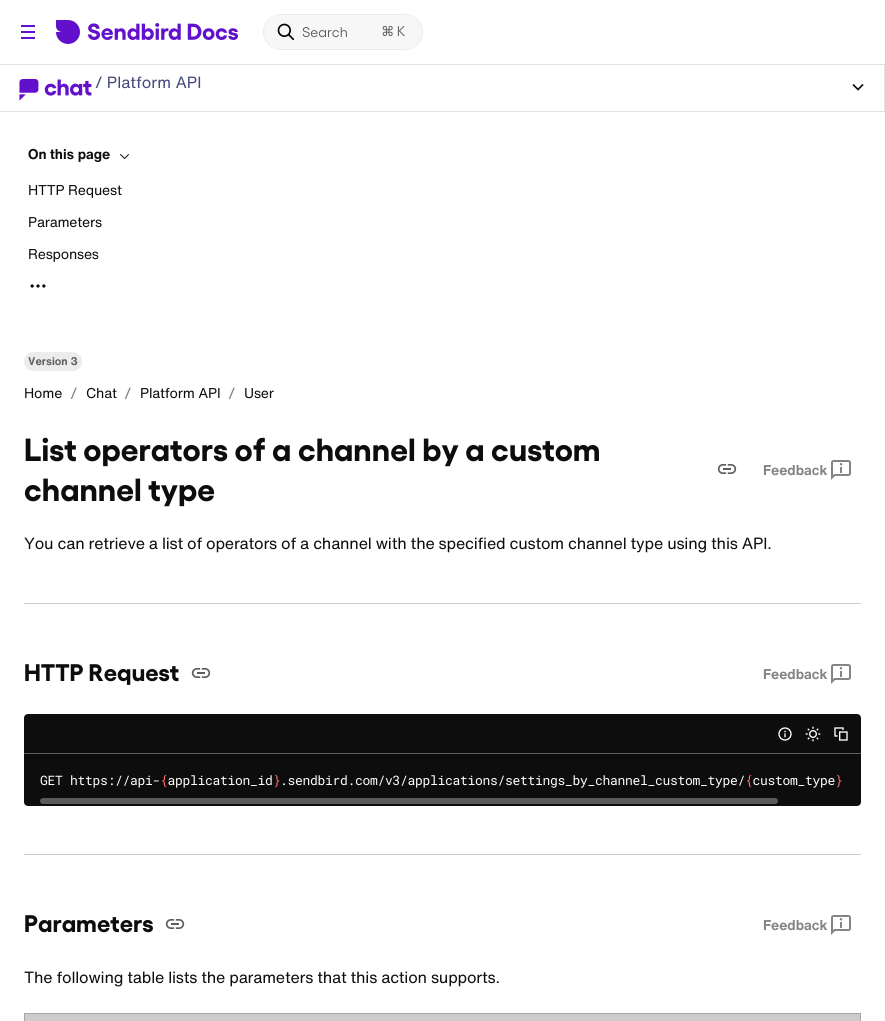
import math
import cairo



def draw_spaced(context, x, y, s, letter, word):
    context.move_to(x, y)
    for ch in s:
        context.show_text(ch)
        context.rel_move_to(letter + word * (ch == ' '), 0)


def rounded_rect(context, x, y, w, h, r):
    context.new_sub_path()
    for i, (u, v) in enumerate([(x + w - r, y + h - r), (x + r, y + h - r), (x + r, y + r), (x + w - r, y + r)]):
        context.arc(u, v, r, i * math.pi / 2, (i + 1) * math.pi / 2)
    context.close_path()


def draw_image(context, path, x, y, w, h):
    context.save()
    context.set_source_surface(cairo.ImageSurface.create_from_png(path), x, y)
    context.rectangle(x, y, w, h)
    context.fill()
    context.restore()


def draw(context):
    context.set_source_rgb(1, 1, 1)
    context.paint()
    context.set_source_rgb(224 / 255, 224 / 255, 224 / 255)
    context.rectangle(884, 64, 1, 48)
    context.fill()
    context.rectangle(0, 64, 885, 1)
    context.fill()
    draw_image(context, "images/1.png", 21, 25, 14, 14)
    draw_image(context, "images/2.png", 56, 20, 182, 24)
    context.set_source_rgb(247 / 255, 247 / 255, 247 / 255)
    rounded_rect(context, 263.5, 14.5, 159, 35, 17.5)
    context.fill_preserve()
    context.set_source_rgb(236 / 255, 236 / 255, 236 / 255)
    context.set_line_width(1)
    context.stroke()
    draw_image(context, "images/3.png", 277, 23, 18, 18)
    draw_image(context, "images/4.png", 382, 25, 23, 11)
    context.set_source_rgb(224 / 255, 224 / 255, 224 / 255)
    context.rectangle(0, 111, 884, 1)
    context.fill()
    draw_image(context, "images/5.png", 19, 79, 73, 22)
    draw_image(context, "images/6.png", 852, 84, 12, 7)
    draw_image(context, "images/7.png", 120, 154, 9, 5)
    draw_image(context, "images/8.png", 30, 284, 16, 4)
    context.set_source_rgb(236 / 255, 236 / 255, 236 / 255)
    rounded_rect(context, 24, 352, 58, 19, 9.5)
    context.fill()
    draw_image(context, "images/9.png", 717, 464, 20, 10)
    draw_image(context, "images/10.png", 831, 460, 20, 20)
    context.set_source_rgb(204 / 255, 204 / 255, 204 / 255)
    context.rectangle(24, 603, 837, 1)
    context.fill()
    draw_image(context, "images/9.png", 191, 668, 20, 10)
    draw_image(context, "images/10.png", 831, 664, 20, 20)
    context.set_source_rgb(13 / 255, 13 / 255, 13 / 255)
    rounded_rect(context, 24, 714, 837, 92, 4)
    context.fill()
    context.set_source_rgb(94 / 255, 94 / 255, 94 / 255)
    context.rectangle(24, 753, 837, 1)
    context.fill()
    draw_image(context, "images/11.png", 778, 727, 14, 14)
    draw_image(context, "images/12.png", 805, 726, 16, 16)
    draw_image(context, "images/13.png", 834, 727, 14, 14)
    context.set_source_rgb(90 / 255, 90 / 255, 90 / 255)
    rounded_rect(context, 40, 798, 738, 6, 3)
    context.fill()
    context.set_source_rgb(204 / 255, 204 / 255, 204 / 255)
    context.rectangle(24, 854, 837, 1)
    context.fill()
    draw_image(context, "images/9.png", 165, 919, 20, 10)
    draw_image(context, "images/10.png", 831, 915, 20, 20)
    context.rectangle(24.5, 1013.5, 836, 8)
    context.fill_preserve()
    context.set_source_rgb(166 / 255, 166 / 255, 166 / 255)
    context.stroke()
    context.select_font_face("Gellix")
    context.set_font_size(14)
    context.set_source_rgb(94 / 255, 94 / 255, 94 / 255)
    context.move_to(302, 37)
    context.show_text("Search")
    context.select_font_face("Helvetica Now")
    context.set_font_size(16)
    context.set_source_rgb(68 / 255, 73 / 255, 122 / 255)
    context.move_to(95, 88)
    context.show_text("/ Platform API")
    context.select_font_face("Helvetica Now", cairo.FontSlant.NORMAL, cairo.FontWeight.BOLD)
    context.set_font_size(14)
    context.set_source_rgb(13 / 255, 13 / 255, 13 / 255)
    context.move_to(28, 159)
    context.show_text("On this page")
    context.select_font_face("Helvetica Now")
    draw_spaced(context, 28, 195, "HTTP Request", -0.2, 0)
    draw_spaced(context, 28, 227, "Parameters", -0.2, 0)
    draw_spaced(context, 28, 259, "Responses", -0.2, 0)
    context.select_font_face("Helvetica Now", cairo.FontSlant.NORMAL, cairo.FontWeight.BOLD)
    context.set_font_size(11)
    context.set_source_rgb(94 / 255, 94 / 255, 94 / 255)
    context.move_to(28, 365)
    context.show_text("Version 3")
    context.select_font_face("Helvetica Now")
    context.set_font_size(14)
    context.set_source_rgb(13 / 255, 13 / 255, 13 / 255)
    draw_spaced(context, 24, 398, "Home", -0.2, 0)
    context.set_font_size(16)
    context.set_source_rgb(133 / 255, 133 / 255, 133 / 255)
    context.move_to(70, 399)
    context.show_text("/")
    context.set_font_size(14)
    context.set_source_rgb(13 / 255, 13 / 255, 13 / 255)
    draw_spaced(context, 86, 398, "Chat", -0.2, 0)
    context.set_font_size(16)
    context.set_source_rgb(133 / 255, 133 / 255, 133 / 255)
    context.move_to(124, 399)
    context.show_text("/")
    context.set_font_size(14)
    context.set_source_rgb(13 / 255, 13 / 255, 13 / 255)
    draw_spaced(context, 140, 398, "Platform API", -0.2, 0)
    context.set_font_size(16)
    context.set_source_rgb(133 / 255, 133 / 255, 133 / 255)
    context.move_to(228, 399)
    context.show_text("/")
    context.set_font_size(14)
    context.set_source_rgb(13 / 255, 13 / 255, 13 / 255)
    draw_spaced(context, 244, 398, "User", -0.2, 0)
    context.select_font_face("Gellix", cairo.FontSlant.NORMAL, cairo.FontWeight.BOLD)
    context.set_font_size(32)
    context.move_to(24, 461)
    context.show_text("List operators of a channel by a custom")
    context.move_to(24, 501)
    context.show_text("channel type")
    context.select_font_face("Helvetica Now", cairo.FontSlant.NORMAL, cairo.FontWeight.BOLD)
    context.set_font_size(14)
    context.set_source_rgb(133 / 255, 133 / 255, 133 / 255)
    context.move_to(763, 475)
    context.show_text("Feedback")
    context.select_font_face("Helvetica Now")
    context.set_font_size(16)
    context.set_source_rgb(13 / 255, 13 / 255, 13 / 255)
    draw_spaced(context, 24, 549, "You can retrieve a list of operators of a channel with the specified custom channel type using this API.", -0.2, 0)
    context.select_font_face("Gellix", cairo.FontSlant.NORMAL, cairo.FontWeight.BOLD)
    context.set_font_size(24)
    context.move_to(24, 681)
    context.show_text("HTTP Request")
    context.select_font_face("Helvetica Now", cairo.FontSlant.NORMAL, cairo.FontWeight.BOLD)
    context.set_font_size(14)
    context.set_source_rgb(133 / 255, 133 / 255, 133 / 255)
    context.move_to(763, 679)
    context.show_text("Feedback")
    context.select_font_face("Roboto Mono")
    context.set_font_size(13)
    context.set_source_rgb(251 / 255, 107 / 255, 107 / 255)
    draw_spaced(context, 835, 785, "}", -0.3, 0)
    context.set_source_rgb(1, 1, 1)
    draw_spaced(context, 40, 785, "GET https://api- application_id .sendbird.com/v3/applications/settings_by_channel_custom_type/ custom_type", -0.3, 0)
    context.set_source_rgb(251 / 255, 107 / 255, 107 / 255)
    draw_spaced(context, 745, 785, "{", -0.3, 0)
    draw_spaced(context, 273, 785, "}", -0.3, 0)
    draw_spaced(context, 160, 785, "{", -0.3, 0)
    context.select_font_face("Gellix", cairo.FontSlant.NORMAL, cairo.FontWeight.BOLD)
    context.set_font_size(24)
    context.set_source_rgb(13 / 255, 13 / 255, 13 / 255)
    context.move_to(24, 932)
    context.show_text("Parameters")
    context.select_font_face("Helvetica Now", cairo.FontSlant.NORMAL, cairo.FontWeight.BOLD)
    context.set_font_size(14)
    context.set_source_rgb(133 / 255, 133 / 255, 133 / 255)
    context.move_to(763, 930)
    context.show_text("Feedback")
    context.select_font_face("Helvetica Now")
    context.set_font_size(16)
    context.set_source_rgb(13 / 255, 13 / 255, 13 / 255)
    draw_spaced(context, 24, 983, "The following table lists the parameters that this action supports.", -0.2, 0)


surface = cairo.ImageSurface(cairo.Format.RGB24, 885, 1021)
context = cairo.Context(surface)
options = cairo.FontOptions()
options.set_hint_metrics(cairo.HintMetrics.OFF)
options.set_hint_style(cairo.HintStyle.NONE)
context.set_font_options(options)
context.set_miter_limit(4)
draw(context)
surface.write_to_png("out.png")
